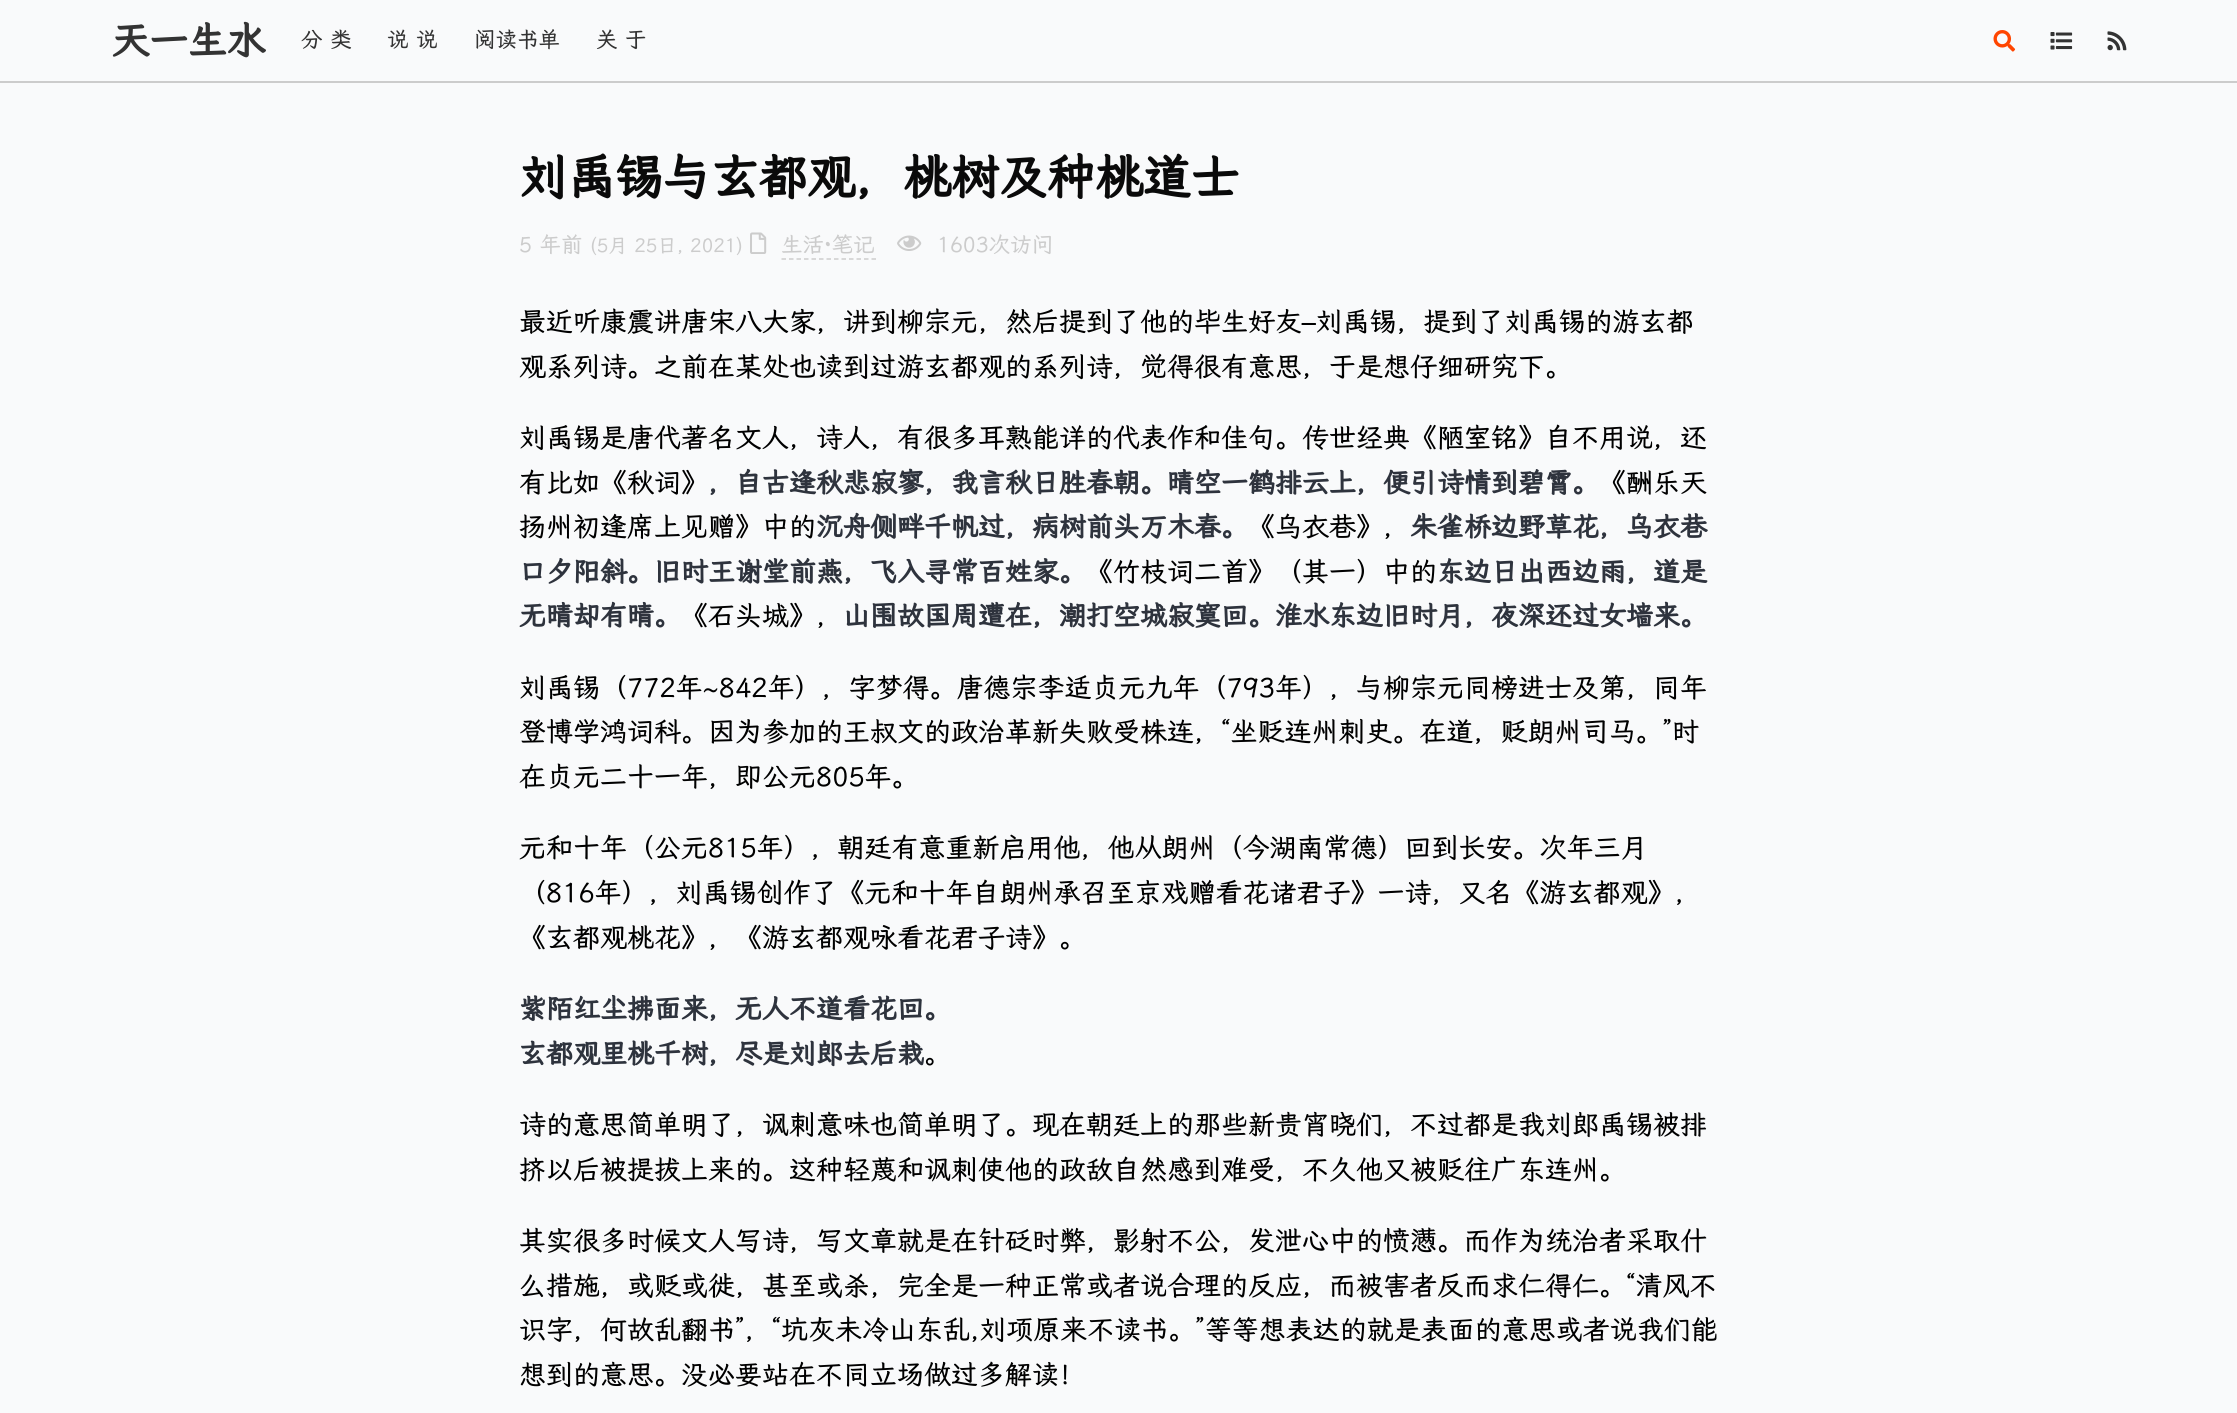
import math
import cairo



def draw_image(context, path, x, y, w, h):
    context.save()
    context.set_source_surface(cairo.ImageSurface.create_from_png(path), x, y)
    context.rectangle(x, y, w, h)
    context.fill()
    context.restore()


def draw(context):
    context.set_source_rgb(249 / 255, 250 / 255, 251 / 255)
    context.paint()
    context.set_source_rgb(204 / 255, 204 / 255, 204 / 255)
    context.rectangle(0, 81, 2237, 2)
    context.fill()
    draw_image(context, "images/1.png", 1993, 30, 23, 22)
    draw_image(context, "images/2.png", 2050, 32, 23, 18)
    draw_image(context, "images/3.png", 2107, 31, 20, 20)
    draw_image(context, "images/4.png", 750, 232, 17, 22)
    context.new_path()
    context.move_to(781.5, 259)
    context.line_to(876, 259)
    context.set_line_width(1.5)
    context.set_dash([4.5, 3])
    context.stroke()
    draw_image(context, "images/5.png", 897, 235, 25, 16)
    context.select_font_face("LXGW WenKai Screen", cairo.FontSlant.NORMAL, cairo.FontWeight.BOLD)
    context.set_font_size(38.5)
    context.set_source_rgb(51 / 255, 51 / 255, 51 / 255)
    context.move_to(111, 54)
    context.show_text("天一生水")
    context.select_font_face("LXGW WenKai Screen")
    context.set_font_size(21.5)
    context.move_to(301, 47)
    context.show_text("分 类")
    context.move_to(387, 47)
    context.show_text("说 说")
    context.move_to(474, 47)
    context.show_text("阅读书单")
    context.move_to(596, 47)
    context.show_text("关 于")
    context.select_font_face("LXGW WenKai Screen", cairo.FontSlant.NORMAL, cairo.FontWeight.BOLD)
    context.set_font_size(48)
    context.set_source_rgb(10 / 255, 10 / 255, 10 / 255)
    context.move_to(519, 194)
    context.show_text("刘禹锡与玄都观，桃树及种桃道士")
    context.select_font_face("LXGW WenKai Screen")
    context.set_font_size(21.5)
    context.set_source_rgb(204 / 255, 204 / 255, 204 / 255)
    context.move_to(519, 252)
    context.show_text("5 年前")
    context.set_font_size(19.25)
    context.move_to(590, 252)
    context.show_text("(5月 25日, 2021)")
    context.set_font_size(21.5)
    context.move_to(781, 252)
    context.show_text("生活·笔记")
    context.move_to(937, 252)
    context.show_text("1603次访问")
    context.set_font_size(27)
    context.set_source_rgb(0, 0, 0)
    context.move_to(519, 331)
    context.show_text("最近听康震讲唐宋八大家，讲到柳宗元，然后提到了他的毕生好友–刘禹锡，提到了刘禹锡的游玄都")
    context.move_to(519, 376)
    context.show_text("观系列诗。之前在某处也读到过游玄都观的系列诗，觉得很有意思，于是想仔细研究下。")
    context.move_to(519, 447)
    context.show_text("刘禹锡是唐代著名文人，诗人，有很多耳熟能详的代表作和佳句。传世经典《陋室铭》自不用说，还")
    context.move_to(519, 492)
    context.show_text("有比如《秋词》")
    context.select_font_face("LXGW WenKai Screen", cairo.FontSlant.NORMAL, cairo.FontWeight.BOLD)
    context.set_source_rgb(46 / 255, 51 / 255, 61 / 255)
    context.move_to(708, 492)
    context.show_text("，自古逢秋悲寂寥，我言秋日胜春朝。晴空一鹤排云上，便引诗情到碧霄。")
    context.select_font_face("LXGW WenKai Screen")
    context.set_source_rgb(0, 0, 0)
    context.move_to(1599, 492)
    context.show_text("《酬乐天")
    context.move_to(519, 536)
    context.show_text("扬州初逢席上见赠》中的")
    context.select_font_face("LXGW WenKai Screen", cairo.FontSlant.NORMAL, cairo.FontWeight.BOLD)
    context.set_source_rgb(46 / 255, 51 / 255, 61 / 255)
    context.move_to(816, 536)
    context.show_text("沉舟侧畔千帆过，病树前头万木春。")
    context.select_font_face("LXGW WenKai Screen")
    context.set_source_rgb(0, 0, 0)
    context.move_to(1248, 536)
    context.show_text("《乌衣巷》，")
    context.select_font_face("LXGW WenKai Screen", cairo.FontSlant.NORMAL, cairo.FontWeight.BOLD)
    context.set_source_rgb(46 / 255, 51 / 255, 61 / 255)
    context.move_to(1410, 536)
    context.show_text("朱雀桥边野草花，乌衣巷")
    context.move_to(519, 581)
    context.show_text("口夕阳斜。旧时王谢堂前燕，飞入寻常百姓家。")
    context.select_font_face("LXGW WenKai Screen")
    context.set_source_rgb(0, 0, 0)
    context.move_to(1086, 581)
    context.show_text("《竹枝词二首》（其一）中的")
    context.select_font_face("LXGW WenKai Screen", cairo.FontSlant.NORMAL, cairo.FontWeight.BOLD)
    context.set_source_rgb(46 / 255, 51 / 255, 61 / 255)
    context.move_to(1437, 581)
    context.show_text("东边日出西边雨，道是")
    context.move_to(519, 625)
    context.show_text("无晴却有晴。")
    context.select_font_face("LXGW WenKai Screen")
    context.set_source_rgb(0, 0, 0)
    context.move_to(681, 625)
    context.show_text("《石头城》，")
    context.select_font_face("LXGW WenKai Screen", cairo.FontSlant.NORMAL, cairo.FontWeight.BOLD)
    context.set_source_rgb(46 / 255, 51 / 255, 61 / 255)
    context.move_to(843, 625)
    context.show_text("山围故国周遭在，潮打空城寂寞回。淮水东边旧时月，夜深还过女墙来。")
    context.select_font_face("LXGW WenKai Screen")
    context.set_source_rgb(0, 0, 0)
    context.move_to(519, 697)
    context.show_text("刘禹锡（772年~842年），字梦得。唐德宗李适贞元九年（793年），与柳宗元同榜进士及第，同年")
    context.move_to(519, 741)
    context.show_text("登博学鸿词科。因为参加的王叔文的政治革新失败受株连，“坐贬连州刺史。在道，贬朗州司马。”时")
    context.move_to(519, 786)
    context.show_text("在贞元二十一年，即公元805年。")
    context.move_to(519, 857)
    context.show_text("元和十年（公元815年），朝廷有意重新启用他，他从朗州（今湖南常德）回到长安。次年三月")
    context.move_to(519, 902)
    context.show_text("（816年），刘禹锡创作了《元和十年自朗州承召至京戏赠看花诸君子》一诗，又名《游玄都观》，")
    context.move_to(519, 947)
    context.show_text("《玄都观桃花》，《游玄都观咏看花君子诗》。")
    context.select_font_face("LXGW WenKai Screen", cairo.FontSlant.NORMAL, cairo.FontWeight.BOLD)
    context.set_source_rgb(46 / 255, 51 / 255, 61 / 255)
    context.move_to(519, 1018)
    context.show_text("紫陌红尘拂面来，无人不道看花回。")
    context.move_to(519, 1063)
    context.show_text("玄都观里桃千树，尽是刘郎去后栽")
    context.select_font_face("LXGW WenKai Screen")
    context.set_source_rgb(0, 0, 0)
    context.move_to(924, 1063)
    context.show_text("。")
    context.move_to(519, 1134)
    context.show_text("诗的意思简单明了，讽刺意味也简单明了。现在朝廷上的那些新贵宵晓们，不过都是我刘郎禹锡被排")
    context.move_to(519, 1179)
    context.show_text("挤以后被提拔上来的。这种轻蔑和讽刺使他的政敌自然感到难受，不久他又被贬往广东连州。")
    context.move_to(519, 1250)
    context.show_text("其实很多时候文人写诗，写文章就是在针砭时弊，影射不公，发泄心中的愤懑。而作为统治者采取什")
    context.move_to(519, 1295)
    context.show_text("么措施，或贬或徙，甚至或杀，完全是一种正常或者说合理的反应，而被害者反而求仁得仁。“清风不")
    context.move_to(519, 1339)
    context.show_text("识字，何故乱翻书”，“坑灰未冷山东乱,刘项原来不读书。”等等想表达的就是表面的意思或者说我们能")
    context.move_to(519, 1384)
    context.show_text("想到的意思。没必要站在不同立场做过多解读！")


surface = cairo.ImageSurface(cairo.Format.RGB24, 2237, 1413)
context = cairo.Context(surface)
options = cairo.FontOptions()
options.set_hint_metrics(cairo.HintMetrics.OFF)
options.set_hint_style(cairo.HintStyle.NONE)
context.set_font_options(options)
context.set_miter_limit(4)
draw(context)
surface.write_to_png("out.png")
